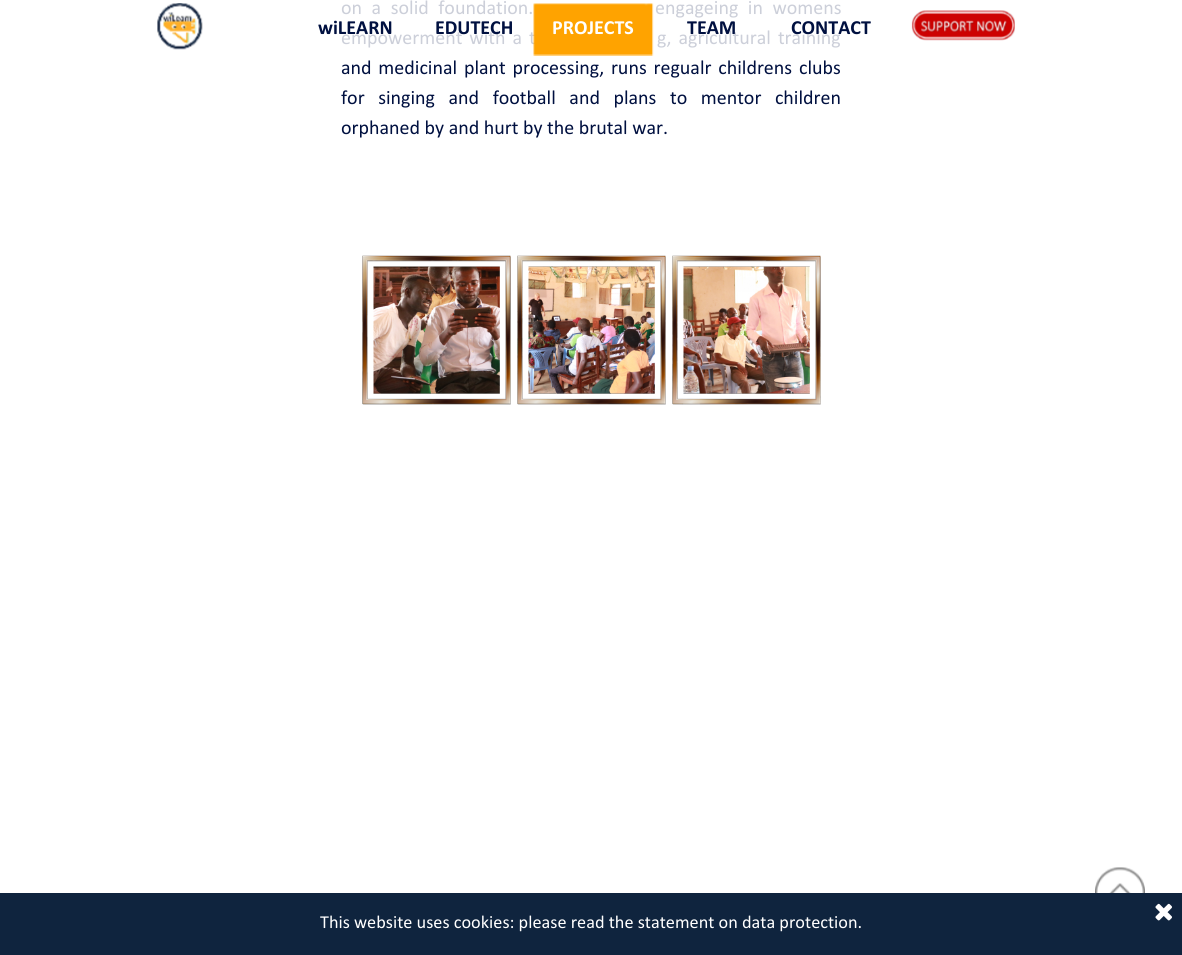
import math
import cairo



def draw_spaced(context, x, y, s, letter, word):
    context.move_to(x, y)
    for ch in s:
        context.show_text(ch)
        context.rel_move_to(letter + word * (ch == ' '), 0)


def draw_image(context, path, x, y, w, h):
    context.save()
    context.set_source_surface(cairo.ImageSurface.create_from_png(path), x, y)
    context.rectangle(x, y, w, h)
    context.fill()
    context.restore()


def draw(context):
    context.set_source_rgb(1, 1, 1)
    context.paint()
    draw_image(context, "images/1.png", 362, 255, 149, 150)
    draw_image(context, "images/2.png", 517, 255, 149, 150)
    draw_image(context, "images/3.png", 672, 255, 149, 150)
    draw_image(context, "images/4.png", 157, 3, 46, 47)
    draw_image(context, "images/6.png", 911, 10, 104, 31)
    draw_image(context, "images/7.png", 1095, 867, 50, 26)
    context.set_source_rgb(15 / 255, 36 / 255, 62 / 255)
    context.rectangle(0, 893, 1182, 62)
    context.fill()
    draw_image(context, "images/8.png", 1155, 903, 17, 18)
    context.select_font_face("Calibri")
    context.set_font_size(20)
    context.set_source_rgb(204 / 255, 207 / 255, 217 / 255)
    draw_spaced(context, 341, 14, "on a solid foundation.", 0, 5)
    draw_spaced(context, 655, 14, "engageing in womens", 0, 5)
    draw_spaced(context, 341, 44, "empowerment with a t", 0, 2.5)
    draw_spaced(context, 657, 44, "g, agricultural training", 0, 2.5)
    context.set_source_rgb(0, 16 / 255, 64 / 255)
    draw_spaced(context, 341, 74, "and medicinal plant processing, runs regualr childrens clubs", 0, 2.25)
    draw_spaced(context, 341, 104, "for singing and football and plans to mentor children", 0, 9)
    context.move_to(341, 134)
    context.show_text("orphaned by and hurt by the brutal war.")
    context.select_font_face("Calibri", cairo.FontSlant.NORMAL, cairo.FontWeight.BOLD)
    context.move_to(318, 34)
    context.show_text("wiLEARN")
    context.move_to(435, 34)
    context.show_text("EDUTECH")
    draw_image(context, "images/5.png", 533, 3, 121, 53)
    context.set_source_rgb(1, 1, 1)
    context.move_to(552, 34)
    context.show_text("PROJECTS")
    context.set_source_rgb(0, 16 / 255, 64 / 255)
    context.move_to(687, 34)
    context.show_text("TEAM")
    context.move_to(791, 34)
    context.show_text("CONTACT")
    context.select_font_face("Calibri")
    context.set_font_size(18.3)
    context.set_source_rgb(1, 1, 1)
    context.move_to(320, 928)
    context.show_text("This website uses cookies: please read the statement on data protection.")


surface = cairo.ImageSurface(cairo.Format.RGB24, 1182, 955)
context = cairo.Context(surface)
options = cairo.FontOptions()
options.set_hint_metrics(cairo.HintMetrics.OFF)
options.set_hint_style(cairo.HintStyle.NONE)
context.set_font_options(options)
context.set_miter_limit(4)
draw(context)
surface.write_to_png("out.png")
